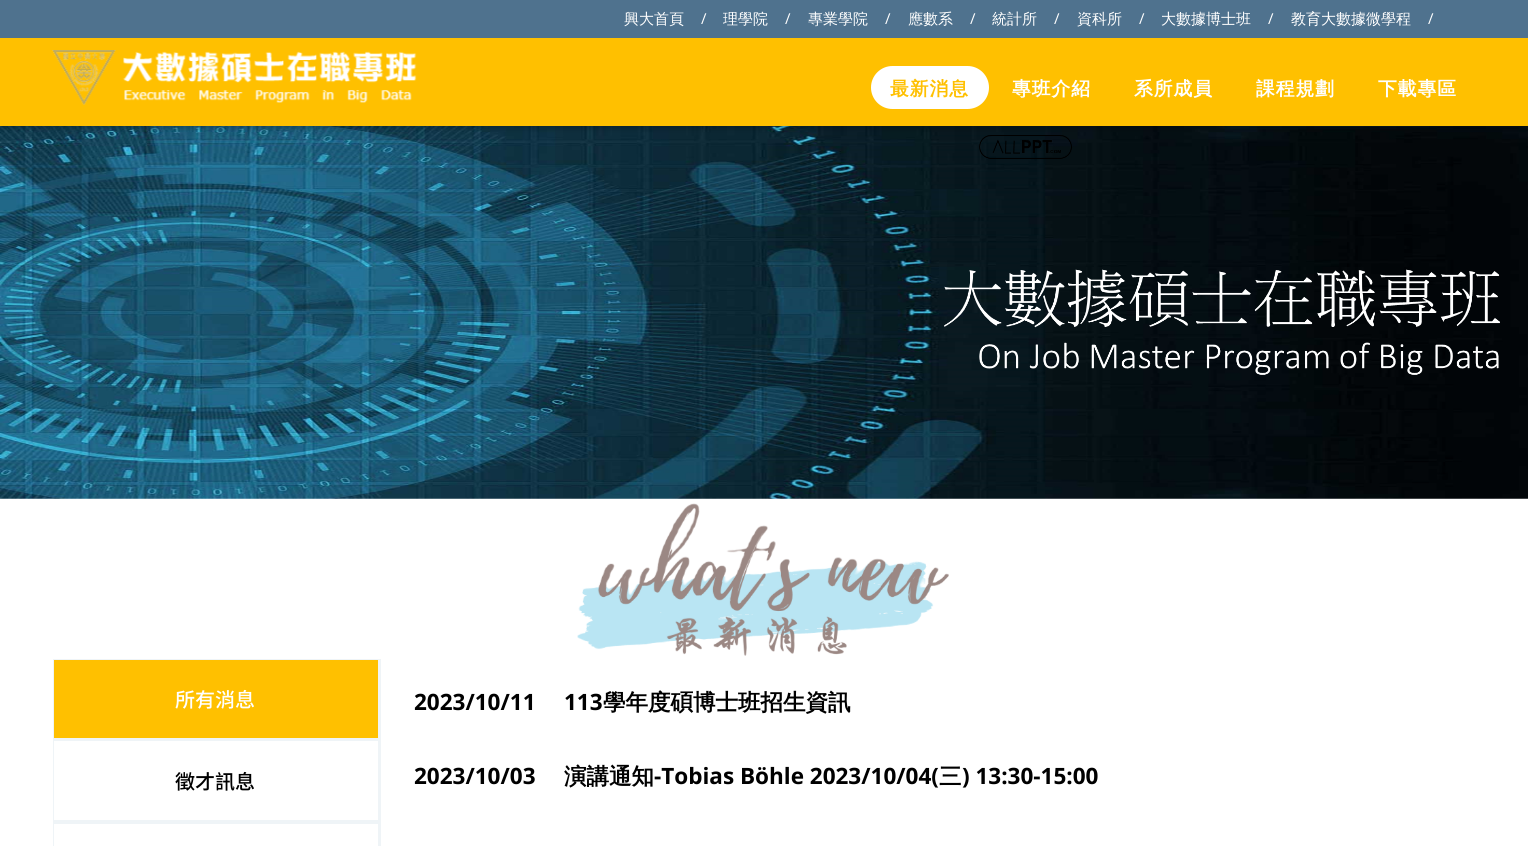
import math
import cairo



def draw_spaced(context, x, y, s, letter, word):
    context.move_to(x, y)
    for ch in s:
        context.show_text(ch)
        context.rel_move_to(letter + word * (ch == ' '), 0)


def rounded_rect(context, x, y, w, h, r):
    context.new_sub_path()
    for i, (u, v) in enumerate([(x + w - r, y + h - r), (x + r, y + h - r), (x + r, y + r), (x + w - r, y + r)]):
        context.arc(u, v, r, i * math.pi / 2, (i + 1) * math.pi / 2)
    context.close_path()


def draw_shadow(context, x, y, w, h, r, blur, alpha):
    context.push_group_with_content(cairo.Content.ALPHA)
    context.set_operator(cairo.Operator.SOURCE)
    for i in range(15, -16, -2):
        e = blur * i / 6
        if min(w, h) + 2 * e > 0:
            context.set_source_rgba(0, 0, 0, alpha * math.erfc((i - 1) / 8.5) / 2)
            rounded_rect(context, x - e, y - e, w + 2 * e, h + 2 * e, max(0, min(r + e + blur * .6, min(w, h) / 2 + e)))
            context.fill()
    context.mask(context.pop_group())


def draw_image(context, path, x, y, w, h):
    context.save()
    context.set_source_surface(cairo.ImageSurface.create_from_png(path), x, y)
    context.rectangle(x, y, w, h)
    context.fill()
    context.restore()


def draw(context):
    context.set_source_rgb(1, 1, 1)
    context.paint()
    draw_image(context, "images/2.png", 0, 126, 1528, 373)
    context.set_source_rgb(0, 0, 0)
    draw_shadow(context, 0, 1, 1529, 127, 0, 3, 0.25)
    context.set_source_rgb(1, 192 / 255, 0)
    context.rectangle(0, 38, 1528, 88)
    context.fill()
    context.set_source_rgb(79 / 255, 114 / 255, 142 / 255)
    context.rectangle(0, 0, 1528, 38)
    context.fill()
    draw_image(context, "images/1.png", 52, 50, 365, 55)
    context.set_source_rgb(1, 1, 1)
    rounded_rect(context, 871, 66, 118, 43, 21.5)
    context.fill()
    draw_image(context, "images/3.png", 577, 503, 372, 153)
    context.set_source_rgb(1, 192 / 255, 0)
    context.rectangle(54, 660, 324, 78)
    context.fill()
    context.set_source_rgb(239 / 255, 244 / 255, 247 / 255)
    context.rectangle(53, 659, 327, 1)
    context.fill()
    context.rectangle(378, 659, 3, 81)
    context.fill()
    context.rectangle(53, 738, 327, 3)
    context.fill()
    context.rectangle(53, 659, 1, 81)
    context.fill()
    context.rectangle(378, 740, 3, 83)
    context.fill()
    context.rectangle(53, 820, 327, 4)
    context.fill()
    context.rectangle(53, 740, 1, 106)
    context.fill()
    context.rectangle(378, 823, 3, 23)
    context.fill()
    context.select_font_face("WenQuanYi Zen Hei Medium")
    context.set_font_size(15)
    context.set_source_rgb(1, 1, 1)
    context.move_to(624, 24)
    context.show_text("興大首頁")
    context.select_font_face("Open Sans")
    context.move_to(701, 24)
    context.show_text("/")
    context.select_font_face("WenQuanYi Zen Hei Medium")
    context.move_to(723, 24)
    context.show_text("理學院")
    context.select_font_face("Open Sans")
    context.move_to(785, 24)
    context.show_text("/")
    context.select_font_face("WenQuanYi Zen Hei Medium")
    context.move_to(808, 24)
    context.show_text("專業學院")
    context.select_font_face("Open Sans")
    context.move_to(885, 24)
    context.show_text("/")
    context.select_font_face("WenQuanYi Zen Hei Medium")
    context.move_to(908, 24)
    context.show_text("應數系")
    context.select_font_face("Open Sans")
    context.move_to(970, 24)
    context.show_text("/")
    context.select_font_face("WenQuanYi Zen Hei Medium")
    context.move_to(992, 24)
    context.show_text("統計所")
    context.select_font_face("Open Sans")
    context.move_to(1054, 24)
    context.show_text("/")
    context.select_font_face("WenQuanYi Zen Hei Medium")
    context.move_to(1077, 24)
    context.show_text("資科所")
    context.select_font_face("Open Sans")
    context.move_to(1139, 24)
    context.show_text("/")
    context.select_font_face("WenQuanYi Zen Hei Medium")
    context.move_to(1161, 24)
    context.show_text("大數據博士班")
    context.select_font_face("Open Sans")
    context.move_to(1268, 24)
    context.show_text("/")
    context.select_font_face("WenQuanYi Zen Hei Medium")
    context.move_to(1291, 24)
    context.show_text("教育大數據微學程")
    context.select_font_face("Open Sans")
    context.move_to(1428, 24)
    context.show_text("/")
    context.select_font_face("WenQuanYi Zen Hei", cairo.FontSlant.NORMAL, cairo.FontWeight.BOLD)
    context.set_font_size(18.75)
    context.set_source_rgb(1, 192 / 255, 0)
    draw_spaced(context, 890, 95, "最新消息", 1, 0)
    context.set_source_rgb(1, 1, 1)
    draw_spaced(context, 1012, 95, "專班介紹", 1, 0)
    draw_spaced(context, 1134, 95, "系所成員", 1, 0)
    draw_spaced(context, 1256, 95, "課程規劃", 1, 0)
    draw_spaced(context, 1378, 95, "下載專區", 1, 0)
    context.select_font_face("Noto Sans TC Medium")
    context.set_font_size(20)
    context.move_to(175, 707)
    context.show_text("所有消息")
    context.set_source_rgb(0, 0, 0)
    context.move_to(175, 789)
    context.show_text("徵才訊息")
    context.select_font_face("Open Sans", cairo.FontSlant.NORMAL, cairo.FontWeight.BOLD)
    context.set_font_size(22.5)
    context.move_to(414, 710)
    context.show_text("2023/10/11")
    context.move_to(564, 710)
    context.show_text("113")
    context.select_font_face("WenQuanYi Zen Hei", cairo.FontSlant.NORMAL, cairo.FontWeight.BOLD)
    context.move_to(603, 710)
    context.show_text("學年度碩博士班招生資訊")
    context.select_font_face("Open Sans", cairo.FontSlant.NORMAL, cairo.FontWeight.BOLD)
    context.move_to(414, 784)
    context.show_text("2023/10/03")
    context.select_font_face("WenQuanYi Zen Hei", cairo.FontSlant.NORMAL, cairo.FontWeight.BOLD)
    context.move_to(564, 784)
    context.show_text("演講通知")
    context.select_font_face("Open Sans", cairo.FontSlant.NORMAL, cairo.FontWeight.BOLD)
    context.move_to(654, 784)
    context.show_text("-Tobias Böhle 2023/10/04(")
    context.select_font_face("WenQuanYi Zen Hei", cairo.FontSlant.NORMAL, cairo.FontWeight.BOLD)
    context.move_to(939, 784)
    context.show_text("三")
    context.select_font_face("Open Sans", cairo.FontSlant.NORMAL, cairo.FontWeight.BOLD)
    context.move_to(962, 784)
    context.show_text(") 13:30-15:00")


surface = cairo.ImageSurface(cairo.Format.RGB24, 1528, 846)
context = cairo.Context(surface)
options = cairo.FontOptions()
options.set_hint_metrics(cairo.HintMetrics.OFF)
options.set_hint_style(cairo.HintStyle.NONE)
context.set_font_options(options)
context.set_miter_limit(4)
draw(context)
surface.write_to_png("out.png")
